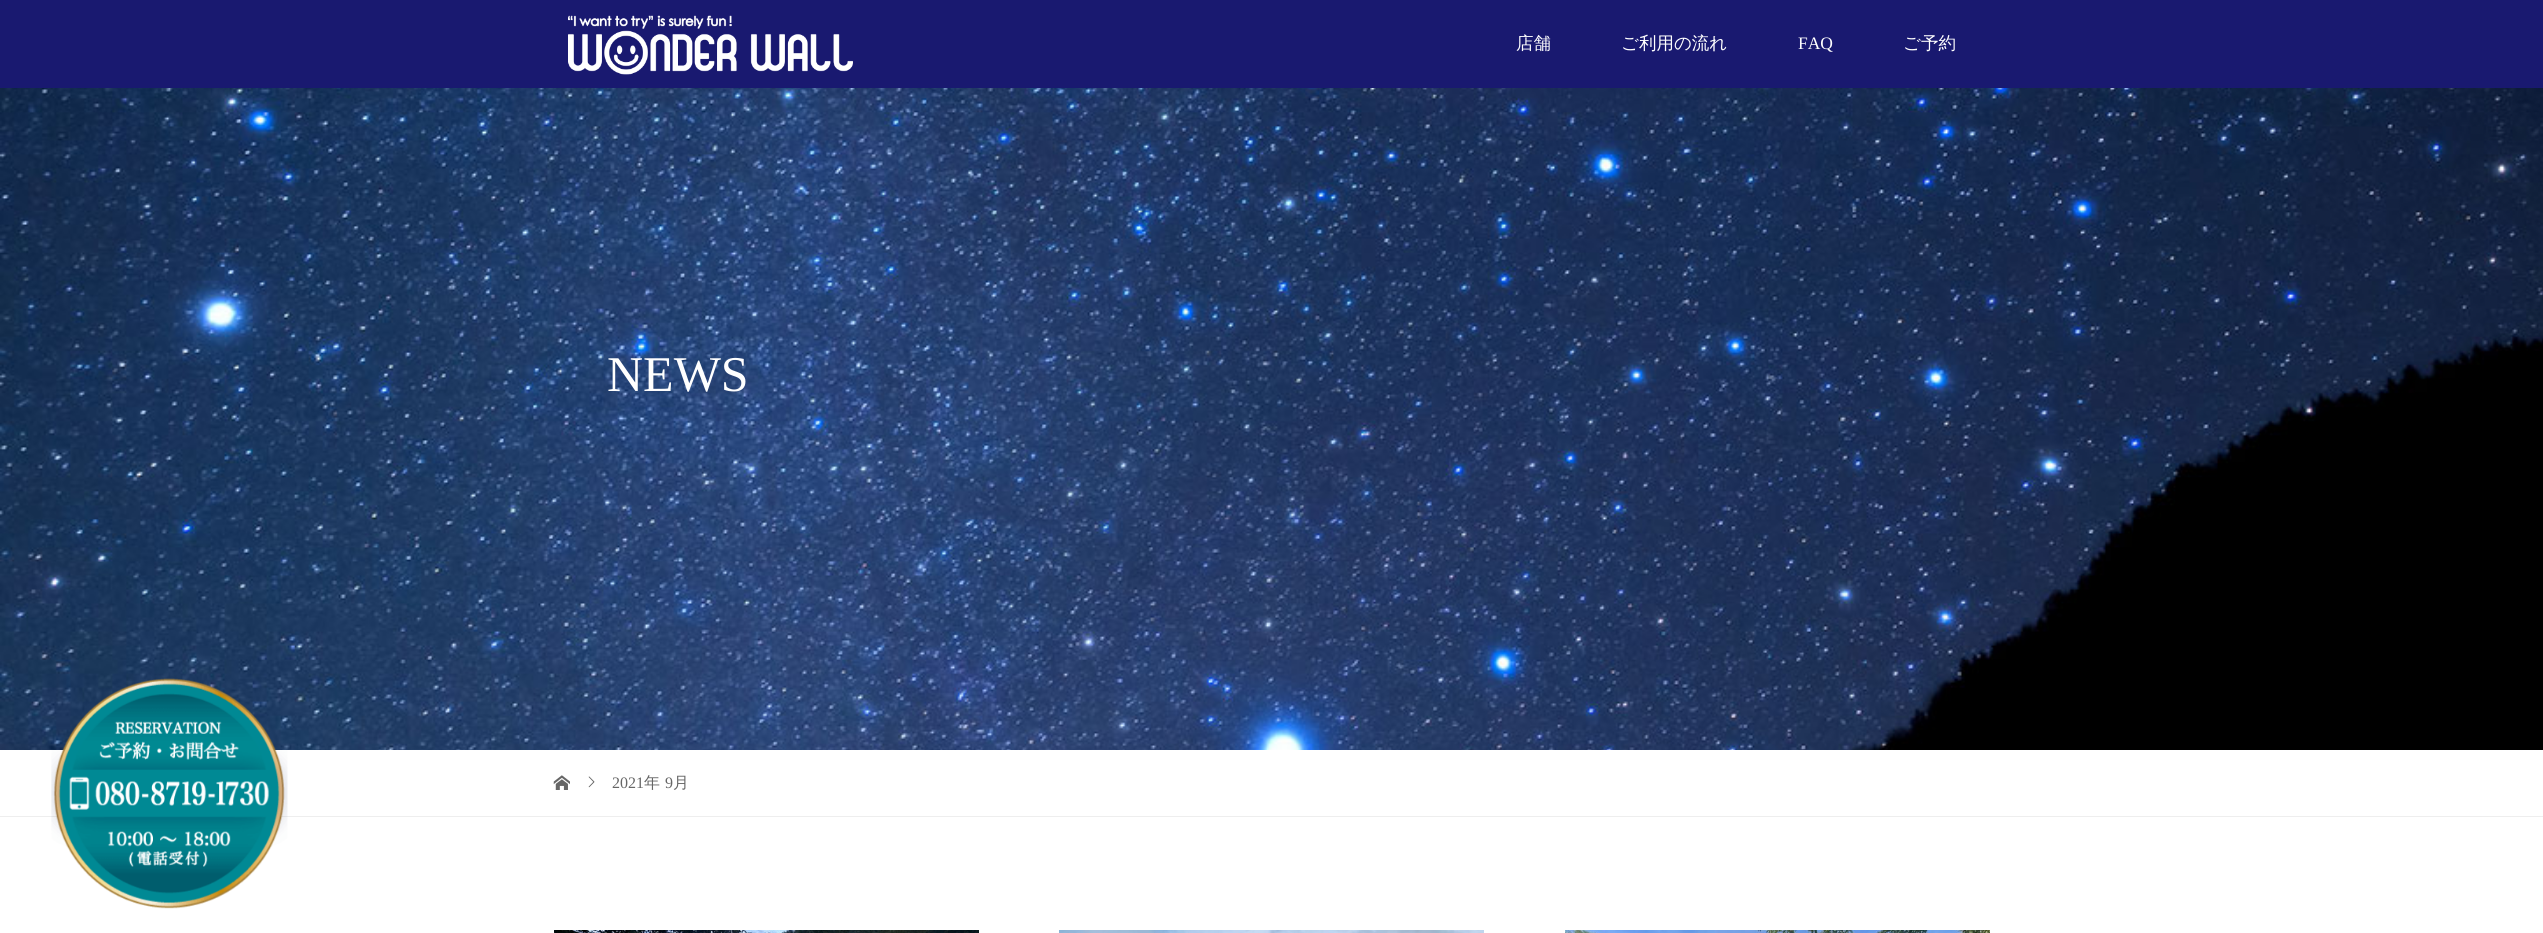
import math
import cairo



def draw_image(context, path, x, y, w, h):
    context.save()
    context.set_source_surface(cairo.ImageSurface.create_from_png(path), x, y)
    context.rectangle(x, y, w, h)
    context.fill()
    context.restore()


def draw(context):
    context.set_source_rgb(1, 1, 1)
    context.paint()
    context.set_source_rgb(25 / 255, 25 / 255, 112 / 255)
    context.rectangle(0, 0, 2543, 88)
    context.fill()
    draw_image(context, "images/1.png", 568, 15, 285, 60)
    draw_image(context, "images/3.png", 0, 88, 2543, 662)
    context.set_source_rgb(238 / 255, 238 / 255, 238 / 255)
    context.rectangle(0, 816, 2543, 1)
    context.fill()
    draw_image(context, "images/2.png", 51, 678, 237, 231)
    draw_image(context, "images/4.png", 553, 775, 17, 15)
    draw_image(context, "images/5.png", 588, 776, 7, 12)
    draw_image(context, "images/6.png", 554, 930, 425, 3)
    draw_image(context, "images/7.png", 1059, 930, 425, 3)
    draw_image(context, "images/8.png", 1565, 930, 425, 3)
    context.select_font_face("WenQuanYi Zen Hei Medium")
    context.set_font_size(17.5)
    context.set_source_rgb(1, 1, 1)
    context.move_to(1516, 49)
    context.show_text("店舗")
    context.move_to(1621, 49)
    context.show_text("ご利用の流れ")
    context.select_font_face("Liberation Serif")
    context.move_to(1798, 49)
    context.show_text("FAQ")
    context.select_font_face("WenQuanYi Zen Hei Medium")
    context.move_to(1903, 49)
    context.show_text("ご予約")
    context.select_font_face("Liberation Serif")
    context.set_font_size(50)
    context.move_to(607, 391)
    context.show_text("NEWS")
    context.set_font_size(16)
    context.set_source_rgb(102 / 255, 102 / 255, 102 / 255)
    context.move_to(612, 788)
    context.show_text("2021")
    context.select_font_face("WenQuanYi Zen Hei Medium")
    context.move_to(644, 788)
    context.show_text("年")
    context.select_font_face("Liberation Serif")
    context.move_to(665, 788)
    context.show_text("9")
    context.select_font_face("WenQuanYi Zen Hei Medium")
    context.move_to(673, 788)
    context.show_text("月")


surface = cairo.ImageSurface(cairo.Format.RGB24, 2543, 933)
context = cairo.Context(surface)
options = cairo.FontOptions()
options.set_hint_metrics(cairo.HintMetrics.OFF)
options.set_hint_style(cairo.HintStyle.NONE)
context.set_font_options(options)
context.set_miter_limit(4)
draw(context)
surface.write_to_png("out.png")
